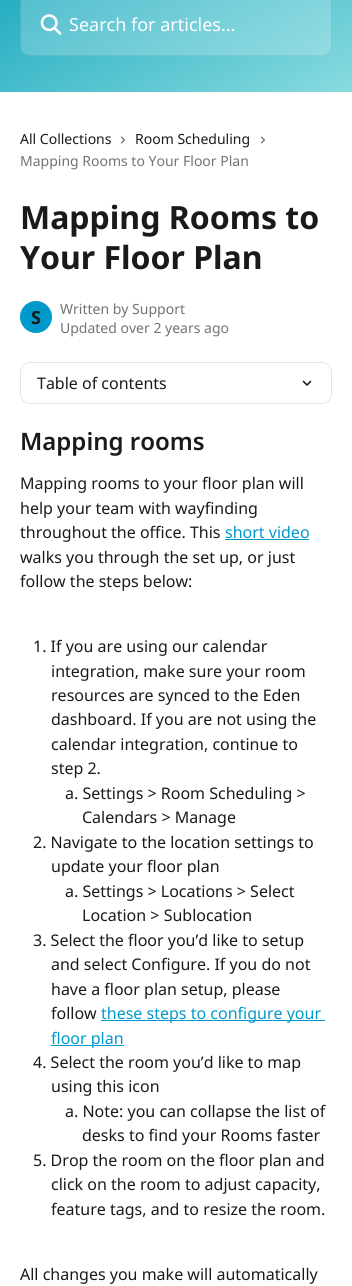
import math
import cairo



def rounded_rect(context, x, y, w, h, r):
    context.new_sub_path()
    for i, (u, v) in enumerate([(x + w - r, y + h - r), (x + r, y + h - r), (x + r, y + r), (x + w - r, y + r)]):
        context.arc(u, v, r, i * math.pi / 2, (i + 1) * math.pi / 2)
    context.close_path()


def draw_image(context, path, x, y, w, h):
    context.save()
    context.set_source_surface(cairo.ImageSurface.create_from_png(path), x, y)
    context.rectangle(x, y, w, h)
    context.fill()
    context.restore()


def draw(context):
    context.set_source_rgb(1, 1, 1)
    context.paint()
    gradient = cairo.LinearGradient(93, -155, 259, 144)
    gradient.add_color_stop_rgba(0, 3 / 255, 157 / 255, 184 / 255, 1)
    gradient.add_color_stop_rgba(1, 136 / 255, 219 / 255, 223 / 255, 1)
    context.set_source(gradient)
    context.rectangle(0, 0, 352, 92)
    context.fill()
    context.set_source_rgba(1, 1, 1, 0.2)
    rounded_rect(context, 20, -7, 312, 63, 10)
    context.fill()
    rounded_rect(context, 20.5, -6.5, 311, 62, 9.5)
    context.set_source_rgba(0, 0, 0, 0.08)
    context.set_line_width(1)
    context.stroke()
    draw_image(context, "images/1.png", 40, 14, 22, 21)
    draw_image(context, "images/2.png", 121, 136, 4, 8)
    draw_image(context, "images/2.png", 261, 136, 4, 8)
    context.set_source_rgb(0, 153 / 255, 204 / 255)
    context.arc(36, 317, 16, 0, 2 * math.pi)
    context.fill()
    rounded_rect(context, 20.5, 362.5, 311, 41, 9.5)
    context.set_source_rgb(230 / 255, 230 / 255, 230 / 255)
    context.stroke()
    draw_image(context, "images/3.png", 302, 380, 10, 6)
    context.set_source_rgb(0, 153 / 255, 204 / 255)
    context.rectangle(225, 539, 84, 1)
    context.fill()
    context.rectangle(101, 1020, 224, 1)
    context.fill()
    context.rectangle(51, 1045, 73, 1)
    context.fill()
    context.select_font_face("Noto Sans")
    context.set_font_size(18)
    context.set_source_rgb(1, 1, 1)
    context.move_to(69, 31)
    context.show_text("Search for articles...")
    context.set_font_size(14)
    context.set_source_rgb(26 / 255, 26 / 255, 26 / 255)
    context.move_to(20, 144)
    context.show_text("All Collections")
    context.move_to(135, 144)
    context.show_text("Room Scheduling")
    context.set_source_rgb(115 / 255, 115 / 255, 115 / 255)
    context.move_to(20, 166)
    context.show_text("Mapping Rooms to Your Floor Plan")
    context.select_font_face("Noto Sans", cairo.FontSlant.NORMAL, cairo.FontWeight.BOLD)
    context.set_font_size(32)
    context.set_source_rgb(26 / 255, 26 / 255, 26 / 255)
    context.move_to(20, 229)
    context.show_text("Mapping Rooms to")
    context.move_to(20, 269)
    context.show_text("Your Floor Plan")
    context.set_font_size(18)
    context.move_to(31, 324)
    context.show_text("S")
    context.select_font_face("Noto Sans")
    context.set_font_size(14)
    context.set_source_rgb(115 / 255, 115 / 255, 115 / 255)
    context.move_to(60, 314)
    context.show_text("Written by Support")
    context.move_to(60, 333)
    context.show_text("Updated over 2 years ago")
    context.set_font_size(16)
    context.set_source_rgb(26 / 255, 26 / 255, 26 / 255)
    context.move_to(37, 389)
    context.show_text("Table of contents")
    context.select_font_face("Noto Sans SemiBold")
    context.set_font_size(24)
    context.move_to(20, 450)
    context.show_text("Mapping rooms")
    context.select_font_face("Noto Sans")
    context.set_font_size(16)
    context.move_to(20, 489)
    context.show_text("Mapping rooms to your floor plan will")
    context.move_to(20, 514)
    context.show_text("help your team with wayfinding")
    context.move_to(20, 538)
    context.show_text("throughout the office. This")
    context.set_source_rgb(0, 153 / 255, 204 / 255)
    context.move_to(225, 538)
    context.show_text("short video")
    context.set_source_rgb(26 / 255, 26 / 255, 26 / 255)
    context.move_to(20, 563)
    context.show_text("walks you through the set up, or just")
    context.move_to(20, 587)
    context.show_text("follow the steps below:")
    context.move_to(33, 652)
    context.show_text("1. If you are using our calendar")
    context.move_to(51, 677)
    context.show_text("integration, make sure your room")
    context.move_to(51, 701)
    context.show_text("resources are synced to the Eden")
    context.move_to(51, 725)
    context.show_text("dashboard. If you are not using the")
    context.move_to(51, 750)
    context.show_text("calendar integration, continue to")
    context.move_to(51, 774)
    context.show_text("step 2.")
    context.move_to(65, 799)
    context.show_text("a. Settings > Room Scheduling >")
    context.move_to(82, 823)
    context.show_text("Calendars > Manage")
    context.move_to(33, 848)
    context.show_text("2. Navigate to the location settings to")
    context.move_to(51, 872)
    context.show_text("update your floor plan")
    context.move_to(65, 897)
    context.show_text("a. Settings > Locations > Select")
    context.move_to(82, 921)
    context.show_text("Location > Sublocation")
    context.move_to(33, 946)
    context.show_text("3. Select the floor you’d like to setup")
    context.move_to(51, 970)
    context.show_text("and select Configure. If you do not")
    context.move_to(51, 995)
    context.show_text("have a floor plan setup, please")
    context.move_to(51, 1019)
    context.show_text("follow")
    context.set_source_rgb(0, 153 / 255, 204 / 255)
    context.move_to(101, 1019)
    context.show_text("these steps to configure your")
    context.move_to(51, 1044)
    context.show_text("floor plan")
    context.set_source_rgb(26 / 255, 26 / 255, 26 / 255)
    context.move_to(33, 1068)
    context.show_text("4. Select the room you’d like to map")
    context.move_to(51, 1092)
    context.show_text("using this icon")
    context.move_to(65, 1117)
    context.show_text("a. Note: you can collapse the list of")
    context.move_to(82, 1141)
    context.show_text("desks to find your Rooms faster")
    context.move_to(33, 1166)
    context.show_text("5. Drop the room on the floor plan and")
    context.move_to(51, 1190)
    context.show_text("click on the room to adjust capacity,")
    context.move_to(51, 1215)
    context.show_text("feature tags, and to resize the room.")
    context.move_to(20, 1280)
    context.show_text("All changes you make will automatically")


surface = cairo.ImageSurface(cairo.Format.RGB24, 352, 1286)
context = cairo.Context(surface)
options = cairo.FontOptions()
options.set_hint_metrics(cairo.HintMetrics.OFF)
options.set_hint_style(cairo.HintStyle.NONE)
context.set_font_options(options)
context.set_miter_limit(4)
draw(context)
surface.write_to_png("out.png")
